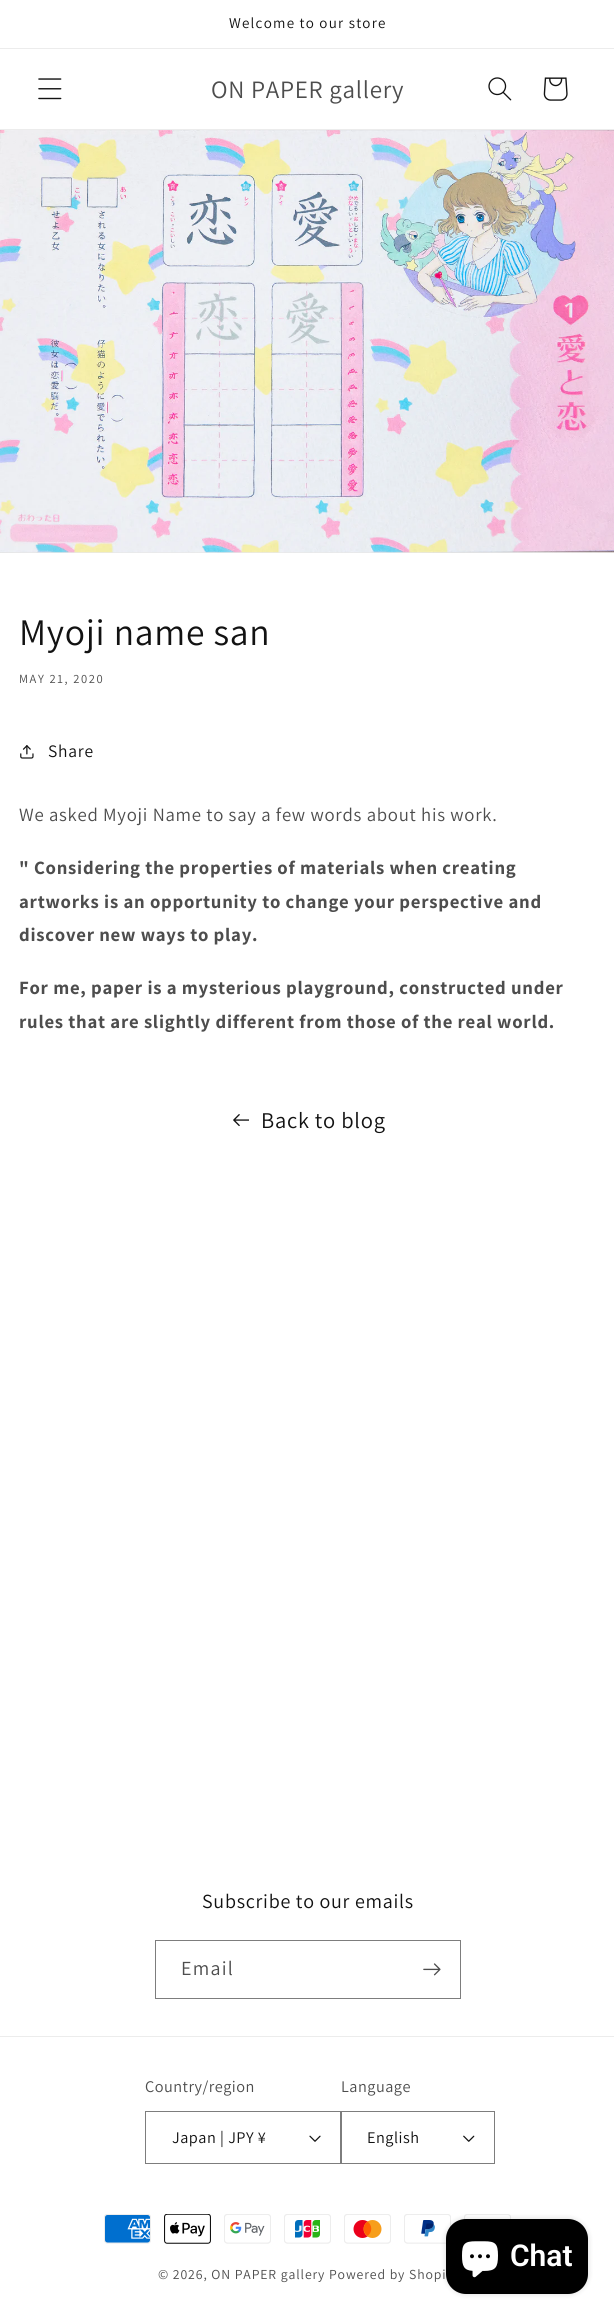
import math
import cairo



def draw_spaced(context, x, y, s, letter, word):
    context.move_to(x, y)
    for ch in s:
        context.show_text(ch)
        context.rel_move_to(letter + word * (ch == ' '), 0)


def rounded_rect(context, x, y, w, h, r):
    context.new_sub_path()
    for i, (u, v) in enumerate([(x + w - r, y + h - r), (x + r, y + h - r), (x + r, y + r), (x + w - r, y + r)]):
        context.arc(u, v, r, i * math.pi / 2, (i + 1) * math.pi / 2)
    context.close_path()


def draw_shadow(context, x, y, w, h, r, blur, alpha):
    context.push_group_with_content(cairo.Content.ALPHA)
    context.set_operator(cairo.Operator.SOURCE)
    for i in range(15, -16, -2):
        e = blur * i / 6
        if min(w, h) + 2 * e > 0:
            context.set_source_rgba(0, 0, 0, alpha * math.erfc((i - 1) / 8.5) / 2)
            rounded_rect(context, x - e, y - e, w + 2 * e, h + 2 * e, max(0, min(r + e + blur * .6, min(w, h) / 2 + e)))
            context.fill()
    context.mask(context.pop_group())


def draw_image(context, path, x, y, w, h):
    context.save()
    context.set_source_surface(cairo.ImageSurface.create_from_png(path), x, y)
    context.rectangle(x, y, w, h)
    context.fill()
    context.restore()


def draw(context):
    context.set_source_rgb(1, 1, 1)
    context.paint()
    context.set_source_rgb(236 / 255, 236 / 255, 236 / 255)
    context.rectangle(0, 48, 614, 1)
    context.fill()
    context.rectangle(0, 129, 614, 1)
    context.fill()
    draw_image(context, "images/1.png", 38, 78, 24, 22)
    draw_image(context, "images/2.png", 488, 77, 24, 24)
    draw_image(context, "images/3.png", 543, 77, 25, 24)
    context.set_source_rgb(232 / 255, 232 / 255, 232 / 255)
    context.rectangle(0, 552, 614, 1)
    context.fill()
    draw_image(context, "images/4.png", 0, 130, 614, 423)
    draw_image(context, "images/5.png", 20, 745, 14, 14)
    draw_image(context, "images/6.png", 233, 1114, 16, 13)
    context.rectangle(155.5, 1940.5, 305, 58)
    context.set_source_rgb(125 / 255, 125 / 255, 125 / 255)
    context.set_line_width(1)
    context.stroke()
    draw_image(context, "images/7.png", 423, 1963, 18, 13)
    context.set_source_rgb(236 / 255, 236 / 255, 236 / 255)
    context.rectangle(0, 2036, 614, 1)
    context.fill()
    draw_image(context, "images/8.png", 309, 2135, 12, 7)
    context.rectangle(145.5, 2111.5, 195, 52)
    context.set_source_rgb(125 / 255, 125 / 255, 125 / 255)
    context.stroke()
    draw_image(context, "images/9.png", 463, 2135, 12, 7)
    context.rectangle(341.5, 2111.5, 153, 52)
    context.stroke()
    draw_image(context, "images/10.png", 104, 2214, 47, 30)
    draw_image(context, "images/11.png", 164, 2214, 47, 30)
    draw_image(context, "images/12.png", 224, 2214, 47, 30)
    draw_image(context, "images/13.png", 284, 2214, 47, 30)
    draw_image(context, "images/14.png", 344, 2214, 47, 30)
    draw_image(context, "images/15.png", 404, 2214, 47, 30)
    draw_image(context, "images/16.png", 464, 2214, 47, 6)
    context.set_source_rgb(0, 0, 0)
    draw_shadow(context, 446, 2219, 142, 75, 20, 3, 0.15)
    context.set_source_rgb(0, 0, 0)
    rounded_rect(context, 446, 2219, 142, 75, 20)
    context.fill()
    draw_image(context, "images/17.png", 462, 2241, 36, 37)
    context.select_font_face("Assistant")
    context.set_font_size(15)
    context.set_source_rgb(18 / 255, 18 / 255, 18 / 255)
    draw_spaced(context, 229, 28, "Welcome to our store", 1.25, 0)
    context.set_font_size(25)
    context.set_source_rgb(77 / 255, 77 / 255, 77 / 255)
    draw_spaced(context, 211, 98, "ON PAPER gallery", 0.75, 0)
    context.set_font_size(37.5)
    context.set_source_rgb(18 / 255, 18 / 255, 18 / 255)
    draw_spaced(context, 19, 645, "Myoji name san", 0.75, 0)
    context.set_font_size(12.5)
    context.set_source_rgb(77 / 255, 77 / 255, 77 / 255)
    draw_spaced(context, 19, 683, "MAY 21, 2020", 1.6, 0)
    context.set_font_size(17.5)
    context.set_source_rgb(18 / 255, 18 / 255, 18 / 255)
    draw_spaced(context, 48, 757, "Share", 0.75, 0)
    context.set_font_size(18.75)
    context.set_source_rgb(77 / 255, 77 / 255, 77 / 255)
    draw_spaced(context, 19, 821, "We asked Myoji Name to say a few words about his work.", 0.75, 0)
    context.select_font_face("Assistant", cairo.FontSlant.NORMAL, cairo.FontWeight.BOLD)
    draw_spaced(context, 19, 874, "\" Considering the properties of materials when creating", 0.75, 0)
    draw_spaced(context, 19, 908, "artworks is an opportunity to change your perspective and", 0.75, 0)
    draw_spaced(context, 19, 941, "discover new ways to play.", 0.75, 0)
    draw_spaced(context, 19, 994, "For me, paper is a mysterious playground, constructed under", 0.75, 0)
    draw_spaced(context, 19, 1028, "rules that are slightly different from those of the real world.", 0.75, 0)
    context.select_font_face("Assistant")
    context.set_font_size(22.5)
    context.set_source_rgb(18 / 255, 18 / 255, 18 / 255)
    draw_spaced(context, 261, 1128, "Back to blog", 0.75, 0)
    context.set_font_size(20)
    draw_spaced(context, 202, 1908, "Subscribe to our emails", 0.75, 0)
    context.set_source_rgb(77 / 255, 77 / 255, 77 / 255)
    draw_spaced(context, 181, 1975, "Email", 1.25, 0)
    context.set_font_size(16.25)
    draw_spaced(context, 145, 2092, "Country/region", 0.5, 0)
    context.set_source_rgb(18 / 255, 18 / 255, 18 / 255)
    draw_spaced(context, 172, 2143, "Japan | JPY ¥", 0.5, 0)
    context.set_source_rgb(77 / 255, 77 / 255, 77 / 255)
    draw_spaced(context, 341, 2092, "Language", 0.5, 0)
    context.set_source_rgb(18 / 255, 18 / 255, 18 / 255)
    draw_spaced(context, 367, 2143, "English", 0.5, 0)
    context.set_font_size(13.75)
    context.set_source_rgb(77 / 255, 77 / 255, 77 / 255)
    draw_spaced(context, 158, 2279, "© 2026, ON PAPER gallery Powered by Shopi", 0.9, 0)
    context.select_font_face("Roboto SemiBold")
    context.set_font_size(30)
    context.set_source_rgb(1, 1, 1)
    context.move_to(510, 2266)
    context.show_text("Chat")


surface = cairo.ImageSurface(cairo.Format.RGB24, 614, 2319)
context = cairo.Context(surface)
options = cairo.FontOptions()
options.set_hint_metrics(cairo.HintMetrics.OFF)
options.set_hint_style(cairo.HintStyle.NONE)
context.set_font_options(options)
context.set_miter_limit(4)
draw(context)
surface.write_to_png("out.png")
